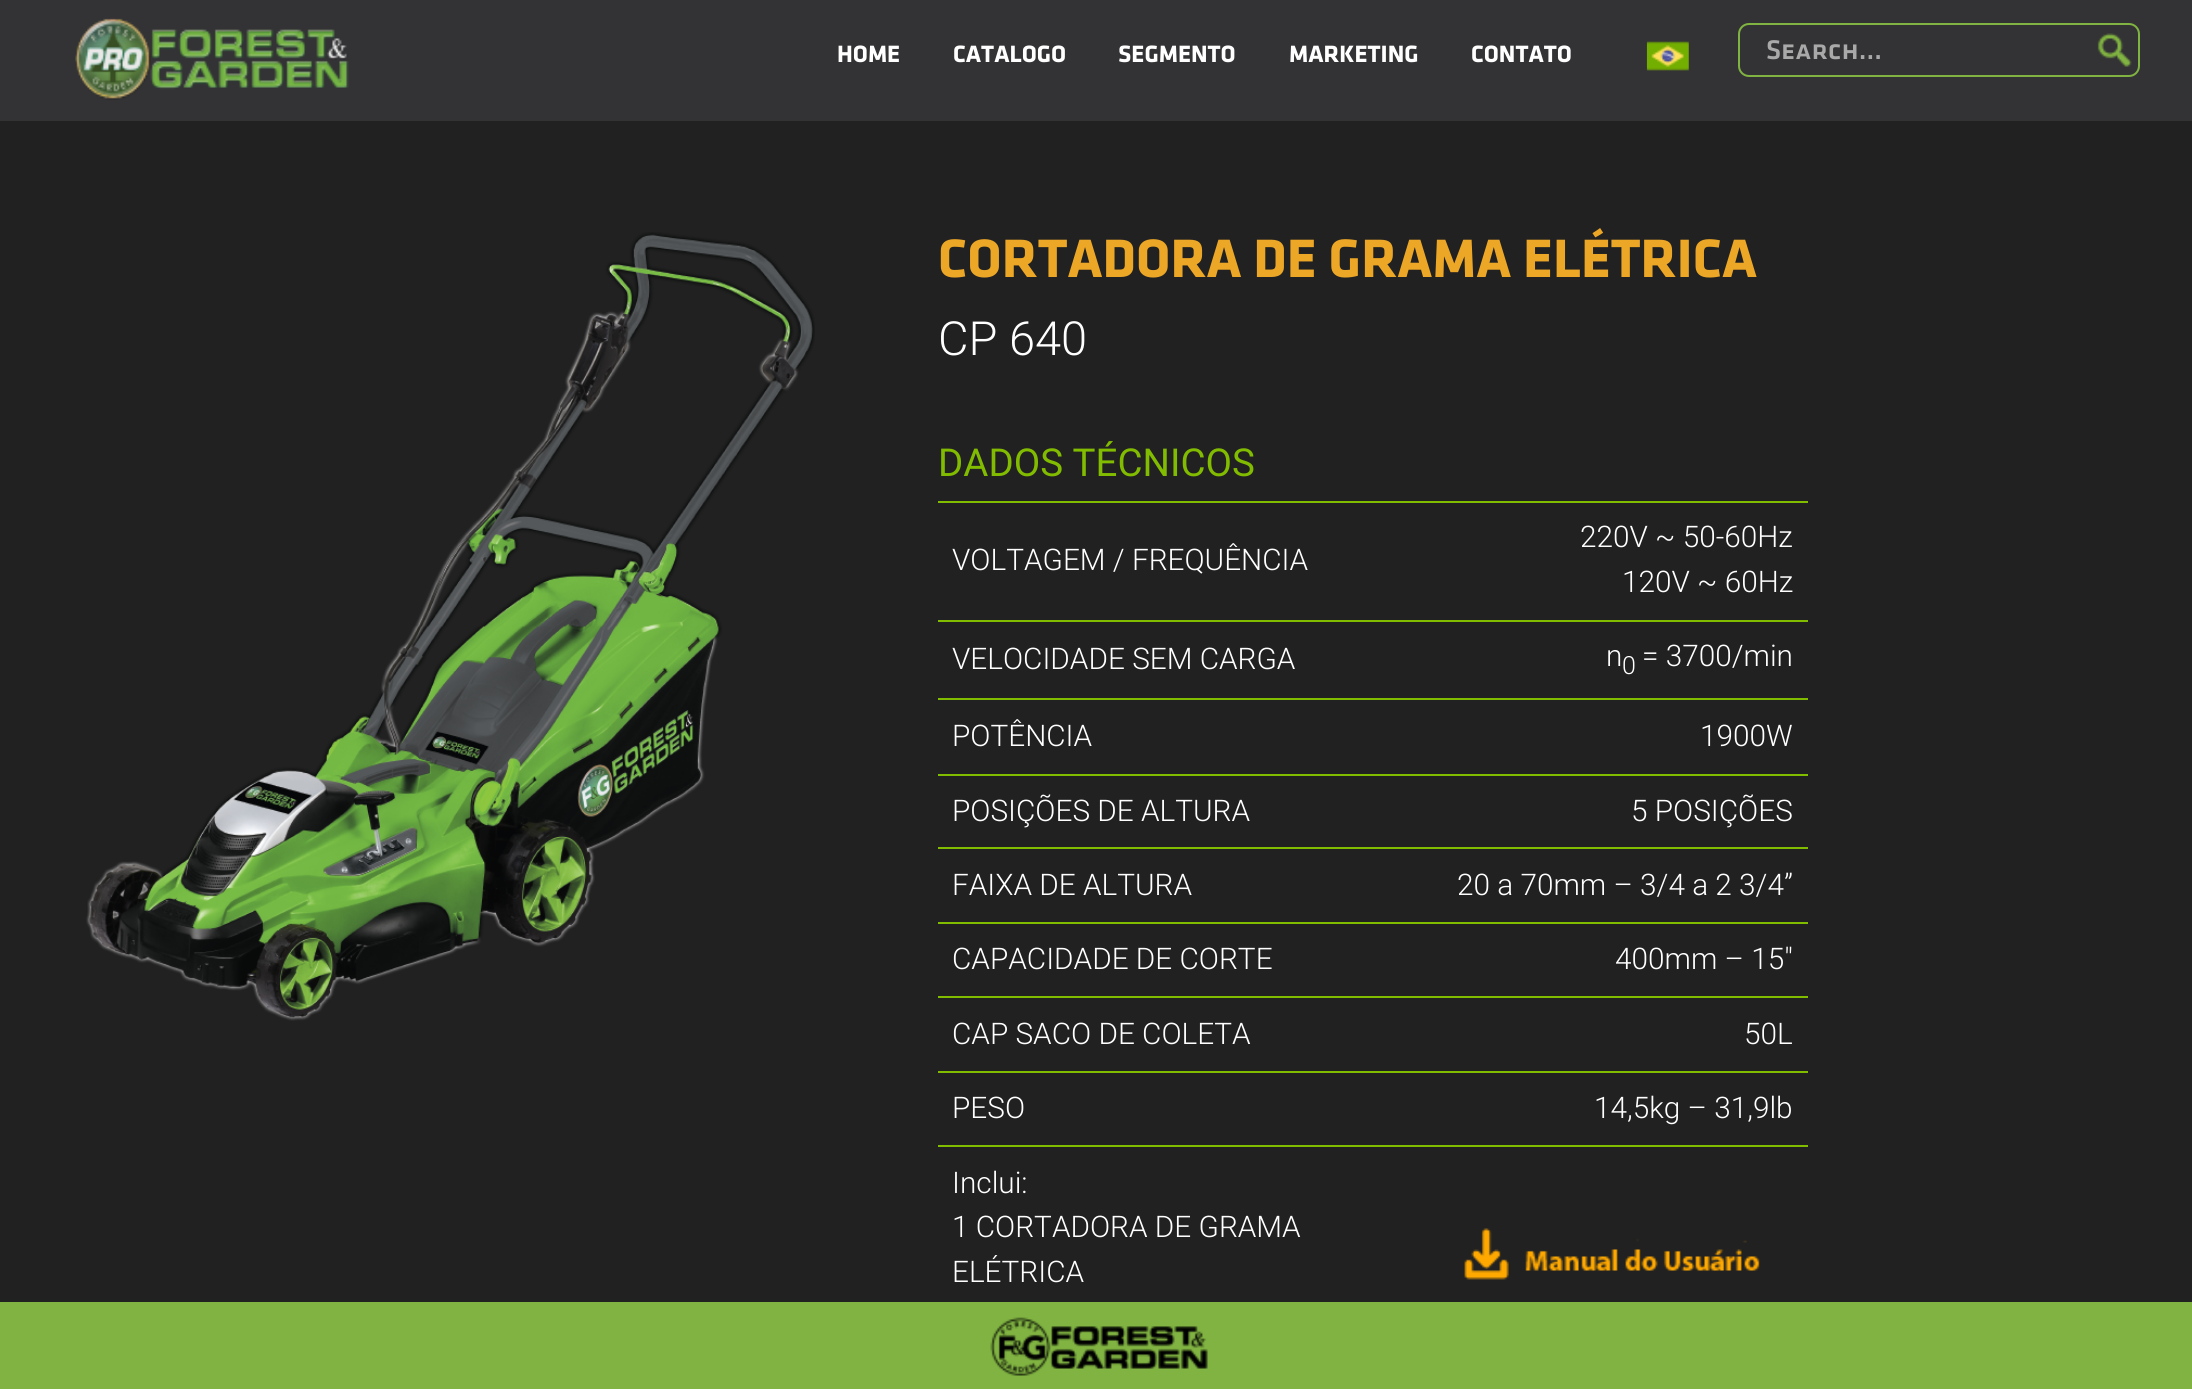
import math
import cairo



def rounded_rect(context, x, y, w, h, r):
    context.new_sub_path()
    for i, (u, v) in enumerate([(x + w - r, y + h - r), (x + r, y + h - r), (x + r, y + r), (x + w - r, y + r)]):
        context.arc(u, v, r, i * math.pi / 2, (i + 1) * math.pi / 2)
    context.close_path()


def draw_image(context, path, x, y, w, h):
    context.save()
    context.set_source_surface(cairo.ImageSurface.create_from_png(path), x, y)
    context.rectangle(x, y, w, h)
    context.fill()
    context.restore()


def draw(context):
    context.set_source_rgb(33 / 255, 33 / 255, 33 / 255)
    context.paint()
    context.set_source_rgb(51 / 255, 51 / 255, 53 / 255)
    context.rectangle(0, 0, 2192, 121)
    context.fill()
    draw_image(context, "images/1.png", 75, 18, 274, 82)
    draw_image(context, "images/2.png", 1646, 41, 43, 30)
    rounded_rect(context, 1739, 24, 400, 52, 10)
    context.set_source_rgb(128 / 255, 179 / 255, 65 / 255)
    context.stroke()
    draw_image(context, "images/3.png", 2097, 33, 35, 34)
    draw_image(context, "images/4.png", 86, 232, 729, 789)
    context.set_source_rgb(130 / 255, 188 / 255, 0)
    context.rectangle(938, 501, 870, 2)
    context.fill()
    context.rectangle(938, 1145, 870, 2)
    context.fill()
    context.rectangle(938, 620, 870, 2)
    context.fill()
    context.rectangle(938, 698, 870, 2)
    context.fill()
    context.rectangle(938, 774, 870, 2)
    context.fill()
    context.rectangle(938, 847, 870, 2)
    context.fill()
    context.rectangle(938, 922, 870, 2)
    context.fill()
    context.rectangle(938, 996, 870, 2)
    context.fill()
    context.rectangle(938, 1071, 870, 2)
    context.fill()
    draw_image(context, "images/5.png", 1464, 1228, 296, 52)
    context.set_source_rgb(128 / 255, 179 / 255, 65 / 255)
    context.rectangle(0, 1302, 2192, 87)
    context.fill()
    draw_image(context, "images/6.png", 990, 1317, 218, 59)
    context.select_font_face("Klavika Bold", cairo.FontSlant.NORMAL, cairo.FontWeight.BOLD)
    context.set_font_size(24.5)
    context.set_source_rgb(1, 1, 1)
    context.move_to(837, 62)
    context.show_text("HOME")
    context.move_to(953, 62)
    context.show_text("CATALOGO")
    context.move_to(1118, 62)
    context.show_text("SEGMENTO")
    context.move_to(1289, 62)
    context.show_text("MARKETING")
    context.move_to(1471, 62)
    context.show_text("CONTATO")
    context.select_font_face("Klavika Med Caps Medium")
    context.set_font_size(28)
    context.set_source_rgb(170 / 255, 169 / 255, 169 / 255)
    context.move_to(1766, 59)
    context.show_text("Search...")
    context.select_font_face("Klavika Bold", cairo.FontSlant.NORMAL, cairo.FontWeight.BOLD)
    context.set_font_size(56)
    context.set_source_rgb(237 / 255, 167 / 255, 38 / 255)
    context.move_to(938, 277)
    context.show_text("CORTADORA DE GRAMA ELÉTRICA")
    context.select_font_face("Roboto Light")
    context.set_font_size(47)
    context.set_source_rgb(1, 1, 1)
    context.move_to(938, 355)
    context.show_text("CP 640")
    context.select_font_face("Roboto")
    context.set_font_size(38.5)
    context.set_source_rgb(130 / 255, 188 / 255, 0)
    context.move_to(938, 476)
    context.show_text("DADOS TÉCNICOS")
    context.select_font_face("Roboto Light")
    context.set_font_size(29.75)
    context.set_source_rgb(1, 1, 1)
    context.move_to(952, 570)
    context.show_text("VOLTAGEM / FREQUÊNCIA")
    context.move_to(1580, 547)
    context.show_text("220V ~ 50-60Hz")
    context.move_to(1622, 592)
    context.show_text("120V ~ 60Hz")
    context.move_to(952, 669)
    context.show_text("VELOCIDADE SEM CARGA")
    context.move_to(1606, 666)
    context.show_text("n")
    context.set_font_size(25)
    context.move_to(1622, 674)
    context.show_text("0")
    context.set_font_size(29.75)
    context.move_to(1642, 666)
    context.show_text("= 3700/min")
    context.move_to(952, 746)
    context.show_text("POTÊNCIA")
    context.move_to(1700, 746)
    context.show_text("1900W")
    context.move_to(952, 821)
    context.show_text("POSIÇÕES DE ALTURA")
    context.move_to(1631, 821)
    context.show_text("5 POSIÇÕES")
    context.move_to(952, 895)
    context.show_text("FAIXA DE ALTURA")
    context.move_to(1457, 895)
    context.show_text("20 a 70mm – 3/4 a 2 3/4”")
    context.move_to(952, 969)
    context.show_text("CAPACIDADE DE CORTE")
    context.move_to(1615, 969)
    context.show_text("400mm – 15″")
    context.move_to(952, 1044)
    context.show_text("CAP SACO DE COLETA")
    context.move_to(1744, 1044)
    context.show_text("50L")
    context.move_to(952, 1118)
    context.show_text("PESO")
    context.move_to(1594, 1118)
    context.show_text("14,5kg – 31,9lb")
    context.move_to(952, 1193)
    context.show_text("Inclui:")
    context.move_to(952, 1237)
    context.show_text("1 CORTADORA DE GRAMA")
    context.move_to(952, 1282)
    context.show_text("ELÉTRICA")


surface = cairo.ImageSurface(cairo.Format.RGB24, 2192, 1389)
context = cairo.Context(surface)
options = cairo.FontOptions()
options.set_hint_metrics(cairo.HintMetrics.OFF)
options.set_hint_style(cairo.HintStyle.NONE)
context.set_font_options(options)
context.set_miter_limit(4)
draw(context)
surface.write_to_png("out.png")
